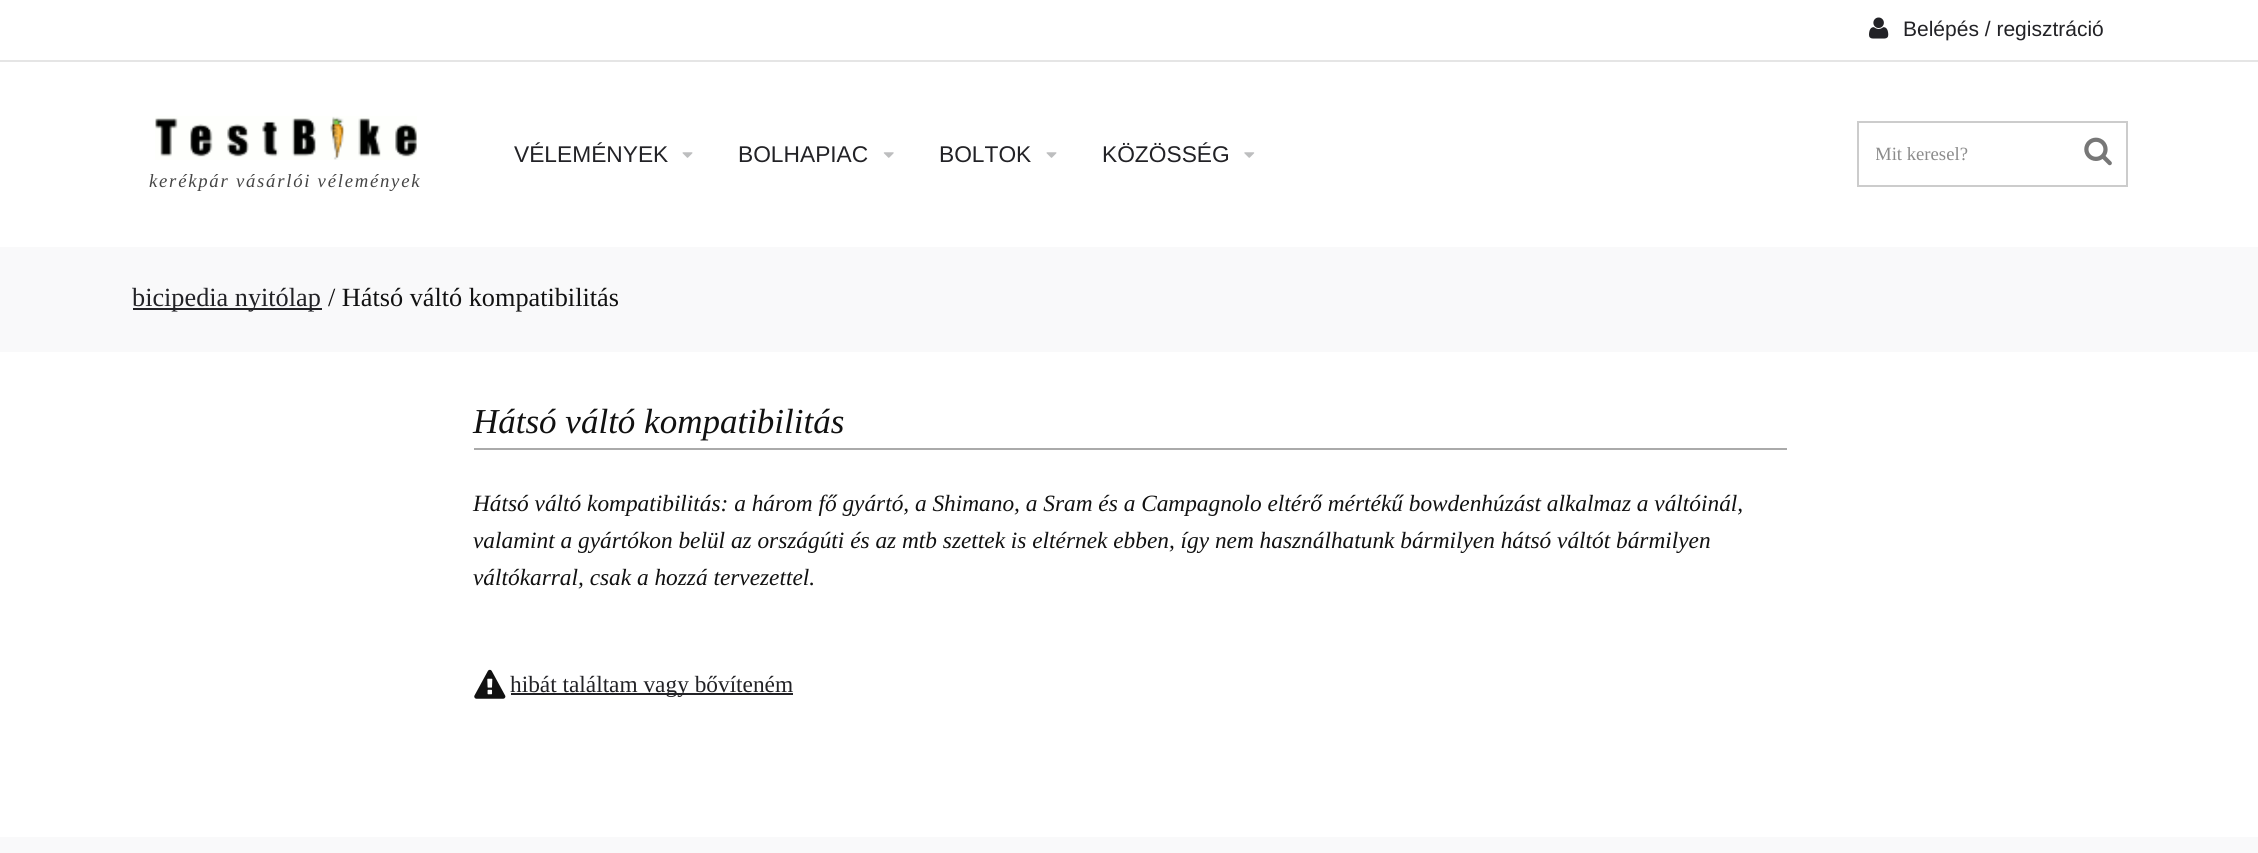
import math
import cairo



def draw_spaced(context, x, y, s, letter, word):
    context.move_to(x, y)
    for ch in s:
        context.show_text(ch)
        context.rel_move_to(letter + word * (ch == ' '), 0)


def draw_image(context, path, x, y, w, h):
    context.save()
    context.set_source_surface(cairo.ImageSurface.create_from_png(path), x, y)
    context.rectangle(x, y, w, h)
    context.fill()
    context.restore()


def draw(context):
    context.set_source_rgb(1, 1, 1)
    context.paint()
    draw_image(context, "images/1.png", 1869, 17, 20, 22)
    context.set_source_rgb(229 / 255, 229 / 255, 229 / 255)
    context.rectangle(0, 60, 2258, 2)
    context.fill()
    draw_image(context, "images/2.png", 682, 152, 11, 6)
    draw_image(context, "images/3.png", 883, 152, 11, 6)
    draw_image(context, "images/2.png", 1046, 152, 11, 6)
    draw_image(context, "images/4.png", 1244, 152, 11, 6)
    context.rectangle(1858, 122, 269, 64)
    context.set_source_rgb(204 / 255, 204 / 255, 204 / 255)
    context.stroke()
    draw_image(context, "images/5.png", 2084, 137, 28, 29)
    draw_image(context, "images/6.png", 155, 116, 262, 44)
    context.set_source_rgb(249 / 255, 249 / 255, 250 / 255)
    context.rectangle(0, 247, 2258, 105)
    context.fill()
    context.set_source_rgb(34 / 255, 34 / 255, 38 / 255)
    context.rectangle(133, 308, 189, 2)
    context.fill()
    context.set_source_rgb(170 / 255, 170 / 255, 170 / 255)
    context.rectangle(474, 448, 1313, 2)
    context.fill()
    draw_image(context, "images/7.png", 474, 669, 32, 30)
    context.set_source_rgb(34 / 255, 34 / 255, 38 / 255)
    context.rectangle(511, 693, 282, 2)
    context.fill()
    context.set_source_rgb(249 / 255, 249 / 255, 250 / 255)
    context.rectangle(0, 837, 2258, 16)
    context.fill()
    context.select_font_face("Liberation Sans")
    context.set_font_size(21)
    context.set_source_rgb(34 / 255, 34 / 255, 38 / 255)
    context.move_to(1903, 36)
    context.show_text("Belépés / regisztráció")
    context.set_font_size(22.75)
    context.move_to(514, 162)
    context.show_text("VÉLEMÉNYEK")
    context.move_to(738, 162)
    context.show_text("BOLHAPIAC")
    context.move_to(939, 162)
    context.show_text("BOLTOK")
    context.move_to(1102, 162)
    context.show_text("KÖZÖSSÉG")
    context.save()
    context.rectangle(1876, 145, 233, 20)
    context.clip()
    context.select_font_face("Liberation Serif")
    context.set_font_size(18.7)
    context.set_source_rgb(140 / 255, 140 / 255, 140 / 255)
    context.move_to(1875, 160)
    context.show_text("Mit keresel?")
    context.restore()
    context.select_font_face("Liberation Serif", cairo.FontSlant.ITALIC)
    context.set_font_size(18.7)
    context.set_source_rgb(68 / 255, 68 / 255, 68 / 255)
    draw_spaced(context, 149, 187, "kerékpár vásárlói vélemények", 1.75, 0)
    context.select_font_face("Liberation Serif")
    context.set_font_size(26.25)
    context.set_source_rgb(34 / 255, 34 / 255, 38 / 255)
    context.move_to(132, 306)
    context.show_text("bicipedia nyitólap")
    context.set_source_rgb(17 / 255, 17 / 255, 17 / 255)
    context.move_to(328, 306)
    context.show_text("/ Hátsó váltó kompatibilitás")
    context.select_font_face("Liberation Serif", cairo.FontSlant.ITALIC)
    context.set_font_size(35)
    context.move_to(473, 433)
    context.show_text("Hátsó váltó kompatibilitás")
    context.set_font_size(23.33)
    context.move_to(473, 511)
    context.show_text("Hátsó váltó kompatibilitás: a három fő gyártó, a Shimano, a Sram és a Campagnolo eltérő mértékű bowdenhúzást alkalmaz a váltóinál,")
    context.move_to(473, 548)
    context.show_text("valamint a gyártókon belül az országúti és az mtb szettek is eltérnek ebben, így nem használhatunk bármilyen hátsó váltót bármilyen")
    context.move_to(473, 585)
    context.show_text("váltókarral, csak a hozzá tervezettel.")
    context.select_font_face("Liberation Serif")
    context.set_source_rgb(34 / 255, 34 / 255, 38 / 255)
    context.move_to(510, 692)
    context.show_text("hibát találtam vagy bővíteném")


surface = cairo.ImageSurface(cairo.Format.RGB24, 2258, 853)
context = cairo.Context(surface)
options = cairo.FontOptions()
options.set_hint_metrics(cairo.HintMetrics.OFF)
options.set_hint_style(cairo.HintStyle.NONE)
context.set_font_options(options)
context.set_miter_limit(4)
draw(context)
surface.write_to_png("out.png")
